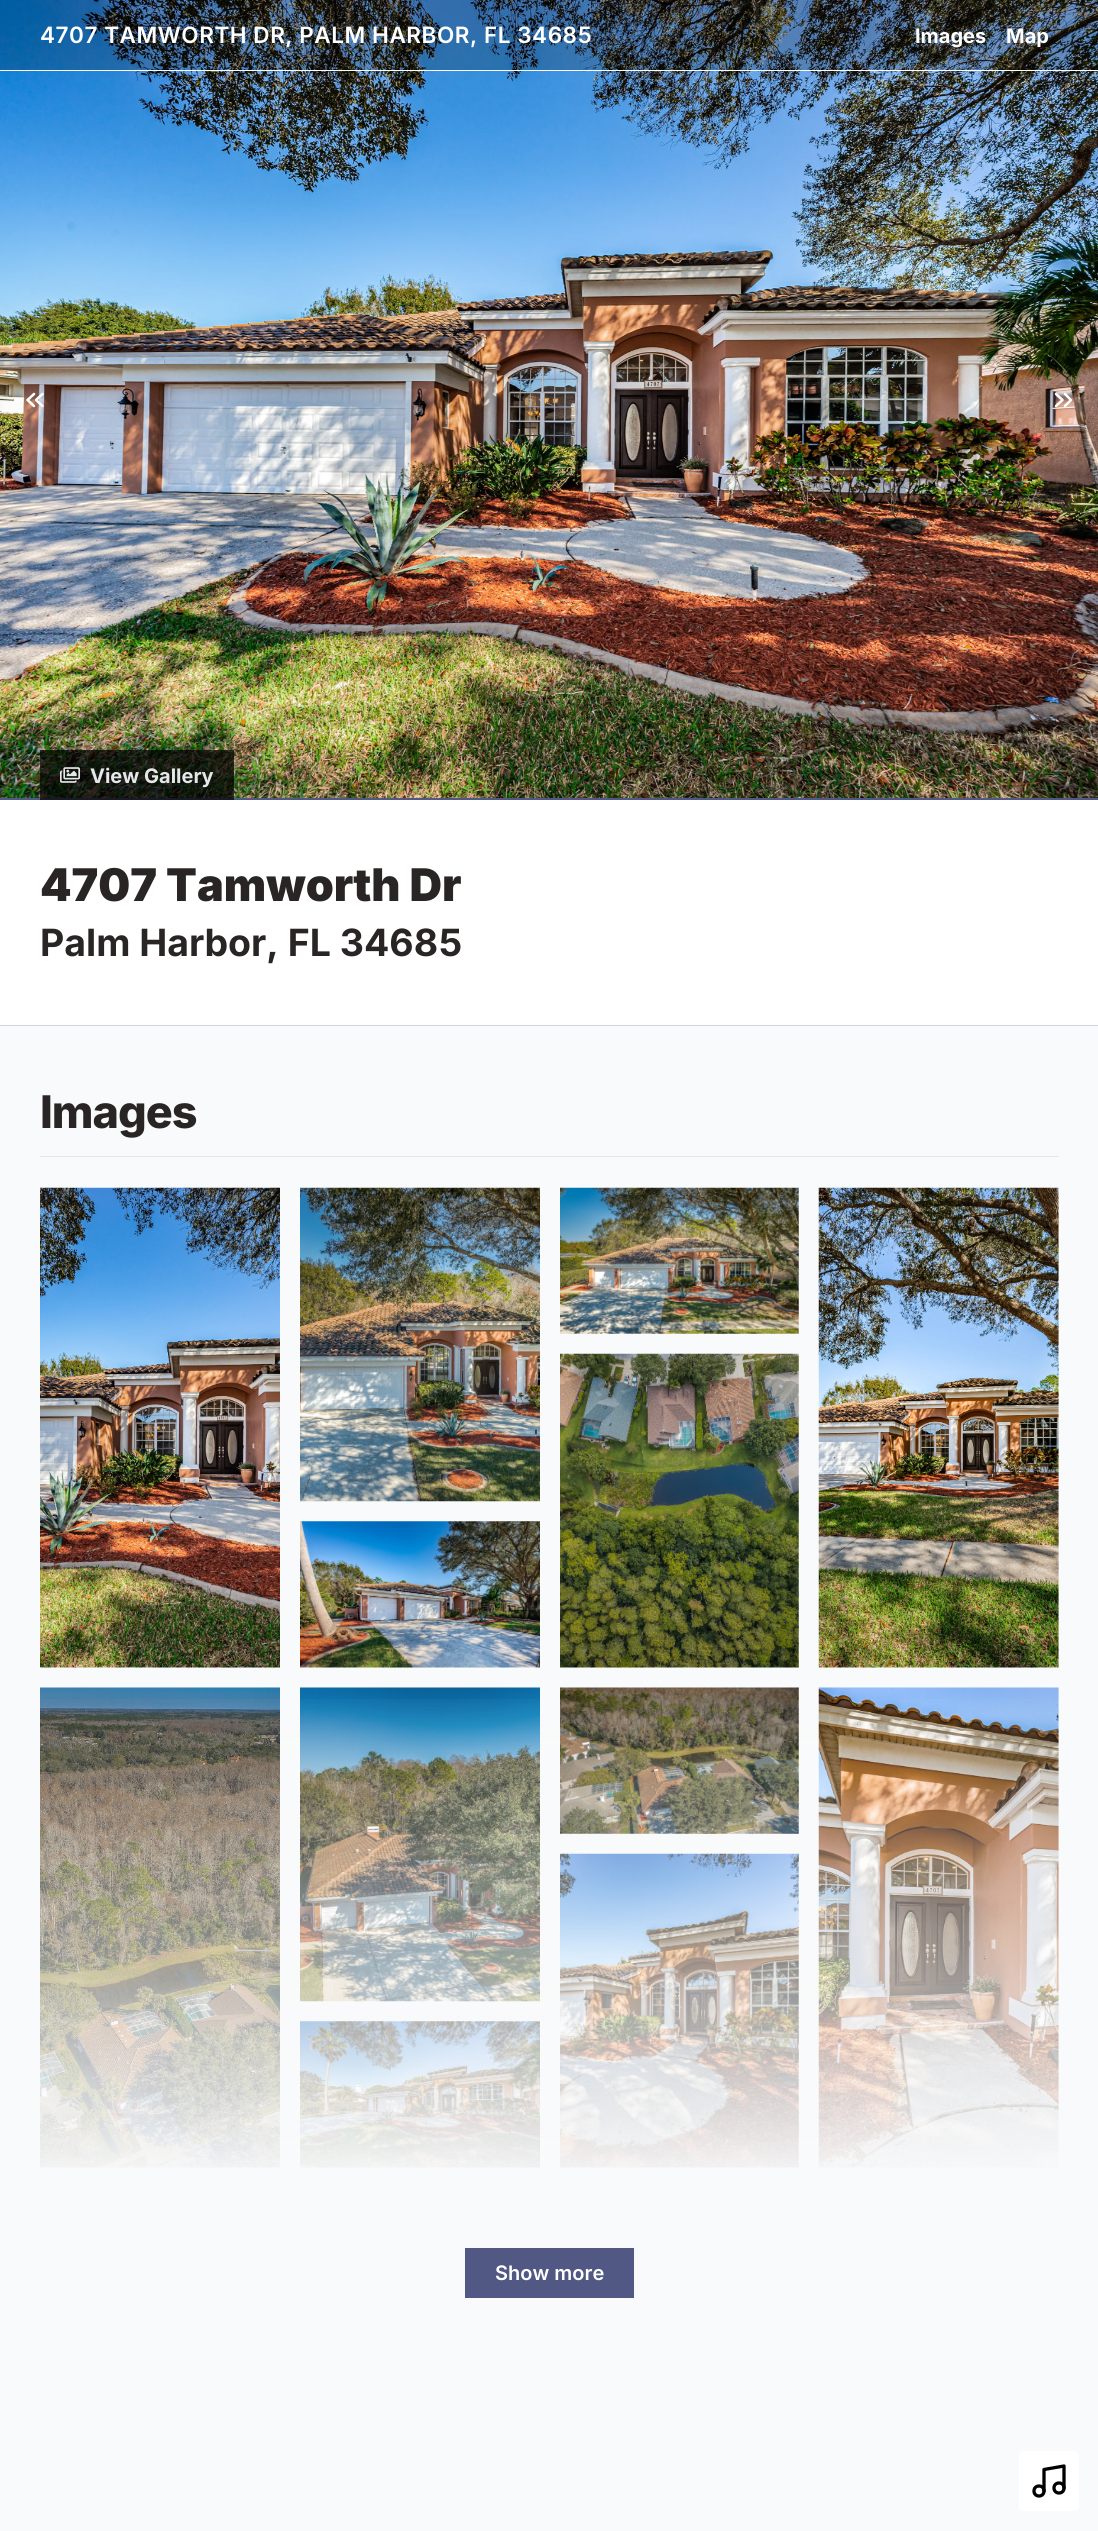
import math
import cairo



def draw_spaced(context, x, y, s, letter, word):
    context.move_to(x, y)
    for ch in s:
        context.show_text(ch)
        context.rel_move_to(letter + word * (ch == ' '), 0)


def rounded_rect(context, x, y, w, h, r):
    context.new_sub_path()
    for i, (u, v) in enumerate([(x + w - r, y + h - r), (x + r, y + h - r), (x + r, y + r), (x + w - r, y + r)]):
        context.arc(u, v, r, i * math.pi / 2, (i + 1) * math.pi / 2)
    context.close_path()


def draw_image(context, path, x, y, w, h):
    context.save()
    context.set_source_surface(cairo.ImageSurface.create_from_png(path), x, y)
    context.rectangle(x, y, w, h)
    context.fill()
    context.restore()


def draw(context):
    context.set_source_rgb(249 / 255, 250 / 255, 251 / 255)
    context.paint()
    draw_image(context, "images/1.png", 0, 0, 1098, 798)
    context.set_source_rgba(0, 0, 0, 0.2)
    context.rectangle(0, 0, 1098, 70)
    context.fill()
    context.set_source_rgb(1, 1, 1)
    context.rectangle(0, 70, 1098, 1)
    context.fill()
    context.set_source_rgb(80 / 255, 88 / 255, 131 / 255)
    context.rectangle(0, 798, 1098, 2)
    context.fill()
    context.new_path()
    context.move_to(34, 406)
    context.line_to(27.5, 400)
    context.line_to(34, 394)
    context.move_to(42.5, 406)
    context.line_to(36, 400)
    context.line_to(42.5, 394)
    context.set_source_rgb(1, 1, 1)
    context.set_line_width(2.5)
    context.set_line_cap(cairo.LineCap.ROUND)
    context.set_line_join(cairo.LineJoin.ROUND)
    context.stroke()
    context.new_path()
    context.move_to(1065, 406)
    context.line_to(1071, 400)
    context.line_to(1065, 394)
    context.move_to(1056, 406)
    context.line_to(1062.5, 400)
    context.line_to(1056, 394)
    context.stroke()
    context.set_source_rgba(0, 0, 0, 0.7)
    context.rectangle(40, 750, 194, 50)
    context.fill()
    draw_image(context, "images/2.png", 60, 767, 20, 16)
    context.set_source_rgb(1, 1, 1)
    context.rectangle(0, 800, 1098, 225)
    context.fill()
    context.set_source_rgb(209 / 255, 213 / 255, 219 / 255)
    context.rectangle(0, 1025, 1098, 1)
    context.fill()
    context.set_source_rgb(228 / 255, 229 / 255, 230 / 255)
    context.rectangle(40, 1156, 1019, 1)
    context.fill()
    draw_image(context, "images/3.png", 40, 1187, 240, 481)
    draw_image(context, "images/4.png", 300, 1187, 240, 315)
    draw_image(context, "images/5.png", 560, 1187, 239, 147)
    draw_image(context, "images/6.png", 818, 1187, 241, 481)
    draw_image(context, "images/7.png", 300, 1521, 240, 147)
    draw_image(context, "images/8.png", 560, 1353, 239, 315)
    draw_image(context, "images/9.png", 40, 1687, 240, 481)
    draw_image(context, "images/10.png", 300, 1687, 240, 315)
    draw_image(context, "images/11.png", 560, 1687, 239, 147)
    draw_image(context, "images/12.png", 818, 1687, 241, 481)
    draw_image(context, "images/13.png", 300, 2021, 240, 147)
    draw_image(context, "images/14.png", 560, 1853, 239, 315)
    gradient = cairo.LinearGradient(549, 1188, 549, 2188)
    gradient.add_color_stop_rgba(0.5, 249 / 255, 250 / 255, 251 / 255, 0)
    gradient.add_color_stop_rgba(1, 249 / 255, 250 / 255, 251 / 255, 1)
    context.set_source(gradient)
    context.rectangle(40, 1699, 1019, 469)
    context.fill()
    context.set_source_rgb(80 / 255, 88 / 255, 131 / 255)
    context.rectangle(465, 2248, 169, 50)
    context.fill()
    context.set_source_rgb(1, 1, 1)
    rounded_rect(context, 1019, 2451, 60, 60, 5)
    context.fill()
    context.new_path()
    context.move_to(1044, 2491)
    context.line_to(1044, 2469.5)
    context.line_to(1064, 2466)
    context.line_to(1064, 2488)
    context.set_source_rgb(0, 0, 0)
    context.set_line_width(3.3)
    context.stroke()
    context.arc(1039, 2491, 5, 0, 2 * math.pi)
    context.set_line_cap(cairo.LineCap.BUTT)
    context.set_line_join(cairo.LineJoin.MITER)
    context.stroke()
    context.arc(1059, 2488, 5, 0, 2 * math.pi)
    context.stroke()
    context.select_font_face("Inter SemiBold")
    context.set_font_size(22.5)
    context.set_source_rgb(1, 1, 1)
    draw_spaced(context, 40, 43, "4707 TAMWORTH DR, PALM HARBOR, FL 34685", 0.55, 0)
    context.select_font_face("Inter", cairo.FontSlant.NORMAL, cairo.FontWeight.BOLD)
    context.set_font_size(20)
    context.move_to(915, 43)
    context.show_text("Images")
    context.move_to(1006, 43)
    context.show_text("Map")
    context.set_source_rgb(229 / 255, 231 / 255, 235 / 255)
    context.move_to(90, 783)
    context.show_text("View Gallery")
    context.select_font_face("Inter Black")
    context.set_font_size(45)
    context.set_source_rgb(41 / 255, 37 / 255, 36 / 255)
    context.move_to(40, 901)
    context.show_text("4707 Tamworth Dr")
    context.select_font_face("Inter", cairo.FontSlant.NORMAL, cairo.FontWeight.BOLD)
    context.set_font_size(37.5)
    context.move_to(40, 956)
    context.show_text("Palm Harbor, FL 34685")
    context.select_font_face("Inter ExtraBold")
    context.set_font_size(45)
    draw_spaced(context, 40, 1128, "Images", -1, 0)
    context.select_font_face("Inter SemiBold")
    context.set_font_size(20)
    context.set_source_rgb(1, 1, 1)
    context.move_to(495, 2280)
    context.show_text("Show more")


surface = cairo.ImageSurface(cairo.Format.RGB24, 1098, 2531)
context = cairo.Context(surface)
options = cairo.FontOptions()
options.set_hint_metrics(cairo.HintMetrics.OFF)
options.set_hint_style(cairo.HintStyle.NONE)
context.set_font_options(options)
context.set_miter_limit(4)
draw(context)
surface.write_to_png("out.png")
